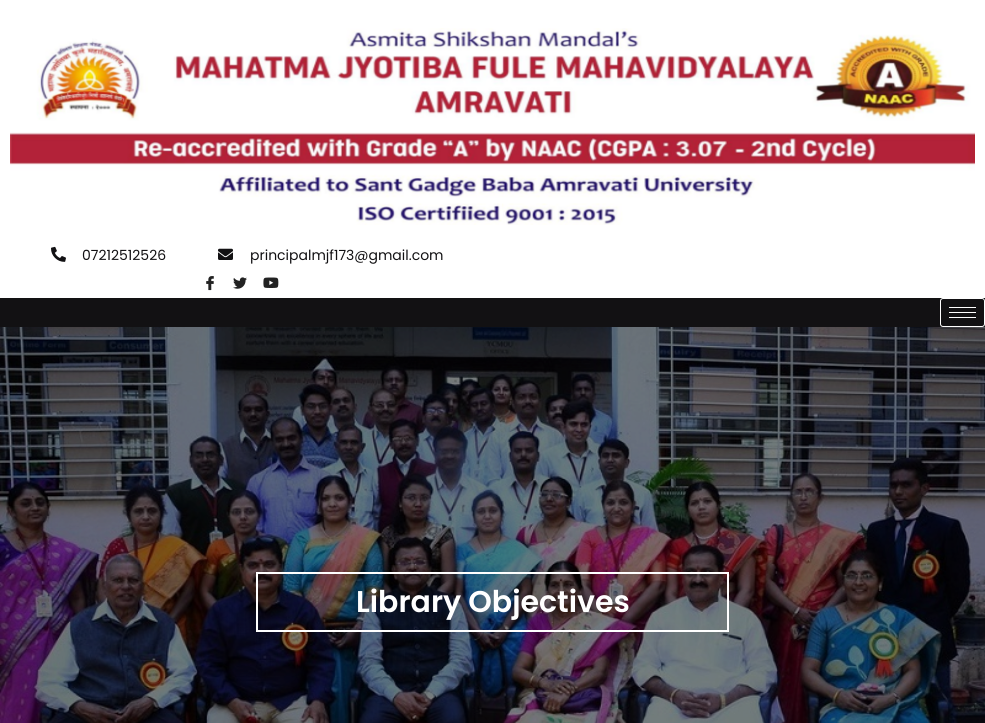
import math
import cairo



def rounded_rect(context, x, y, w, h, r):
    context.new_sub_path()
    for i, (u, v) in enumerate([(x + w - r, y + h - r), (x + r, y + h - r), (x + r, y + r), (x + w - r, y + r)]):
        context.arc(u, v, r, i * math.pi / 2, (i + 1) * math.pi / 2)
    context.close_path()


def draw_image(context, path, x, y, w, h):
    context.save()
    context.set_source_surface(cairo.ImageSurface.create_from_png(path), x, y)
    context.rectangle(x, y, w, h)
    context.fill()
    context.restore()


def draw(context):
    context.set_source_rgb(1, 1, 1)
    context.paint()
    draw_image(context, "images/1.png", 10, 28, 965, 197)
    draw_image(context, "images/2.png", 51, 246, 15, 16)
    draw_image(context, "images/3.png", 218, 248, 15, 12)
    draw_image(context, "images/4.png", 206, 276, 8, 15)
    draw_image(context, "images/5.png", 233, 277, 14, 12)
    draw_image(context, "images/6.png", 263, 277, 16, 11)
    context.set_source_rgb(18 / 255, 17 / 255, 19 / 255)
    context.rectangle(0, 298, 985, 29)
    context.fill()
    rounded_rect(context, 940.5, 298.5, 44, 28, 2.5)
    context.set_source_rgb(1, 1, 1)
    context.set_line_width(1)
    context.stroke()
    context.rectangle(949, 307, 27, 1)
    context.fill()
    context.rectangle(949, 312, 27, 1)
    context.fill()
    context.rectangle(949, 317, 27, 1)
    context.fill()
    draw_image(context, "images/7.png", 0, 327, 985, 396)
    context.rectangle(257, 573, 471, 58)
    context.set_line_width(2)
    context.stroke()
    context.select_font_face("Poppins")
    context.set_font_size(14)
    context.set_source_rgb(18 / 255, 17 / 255, 19 / 255)
    context.move_to(82, 260)
    context.show_text("07212512526")
    context.move_to(250, 260)
    context.show_text("principalmjf173@gmail.com")
    context.select_font_face("Poppins SemiBold")
    context.set_font_size(30)
    context.set_source_rgb(1, 1, 1)
    context.move_to(356, 612)
    context.show_text("Library Objectives")


surface = cairo.ImageSurface(cairo.Format.RGB24, 985, 723)
context = cairo.Context(surface)
options = cairo.FontOptions()
options.set_hint_metrics(cairo.HintMetrics.OFF)
options.set_hint_style(cairo.HintStyle.NONE)
context.set_font_options(options)
context.set_miter_limit(4)
draw(context)
surface.write_to_png("out.png")
